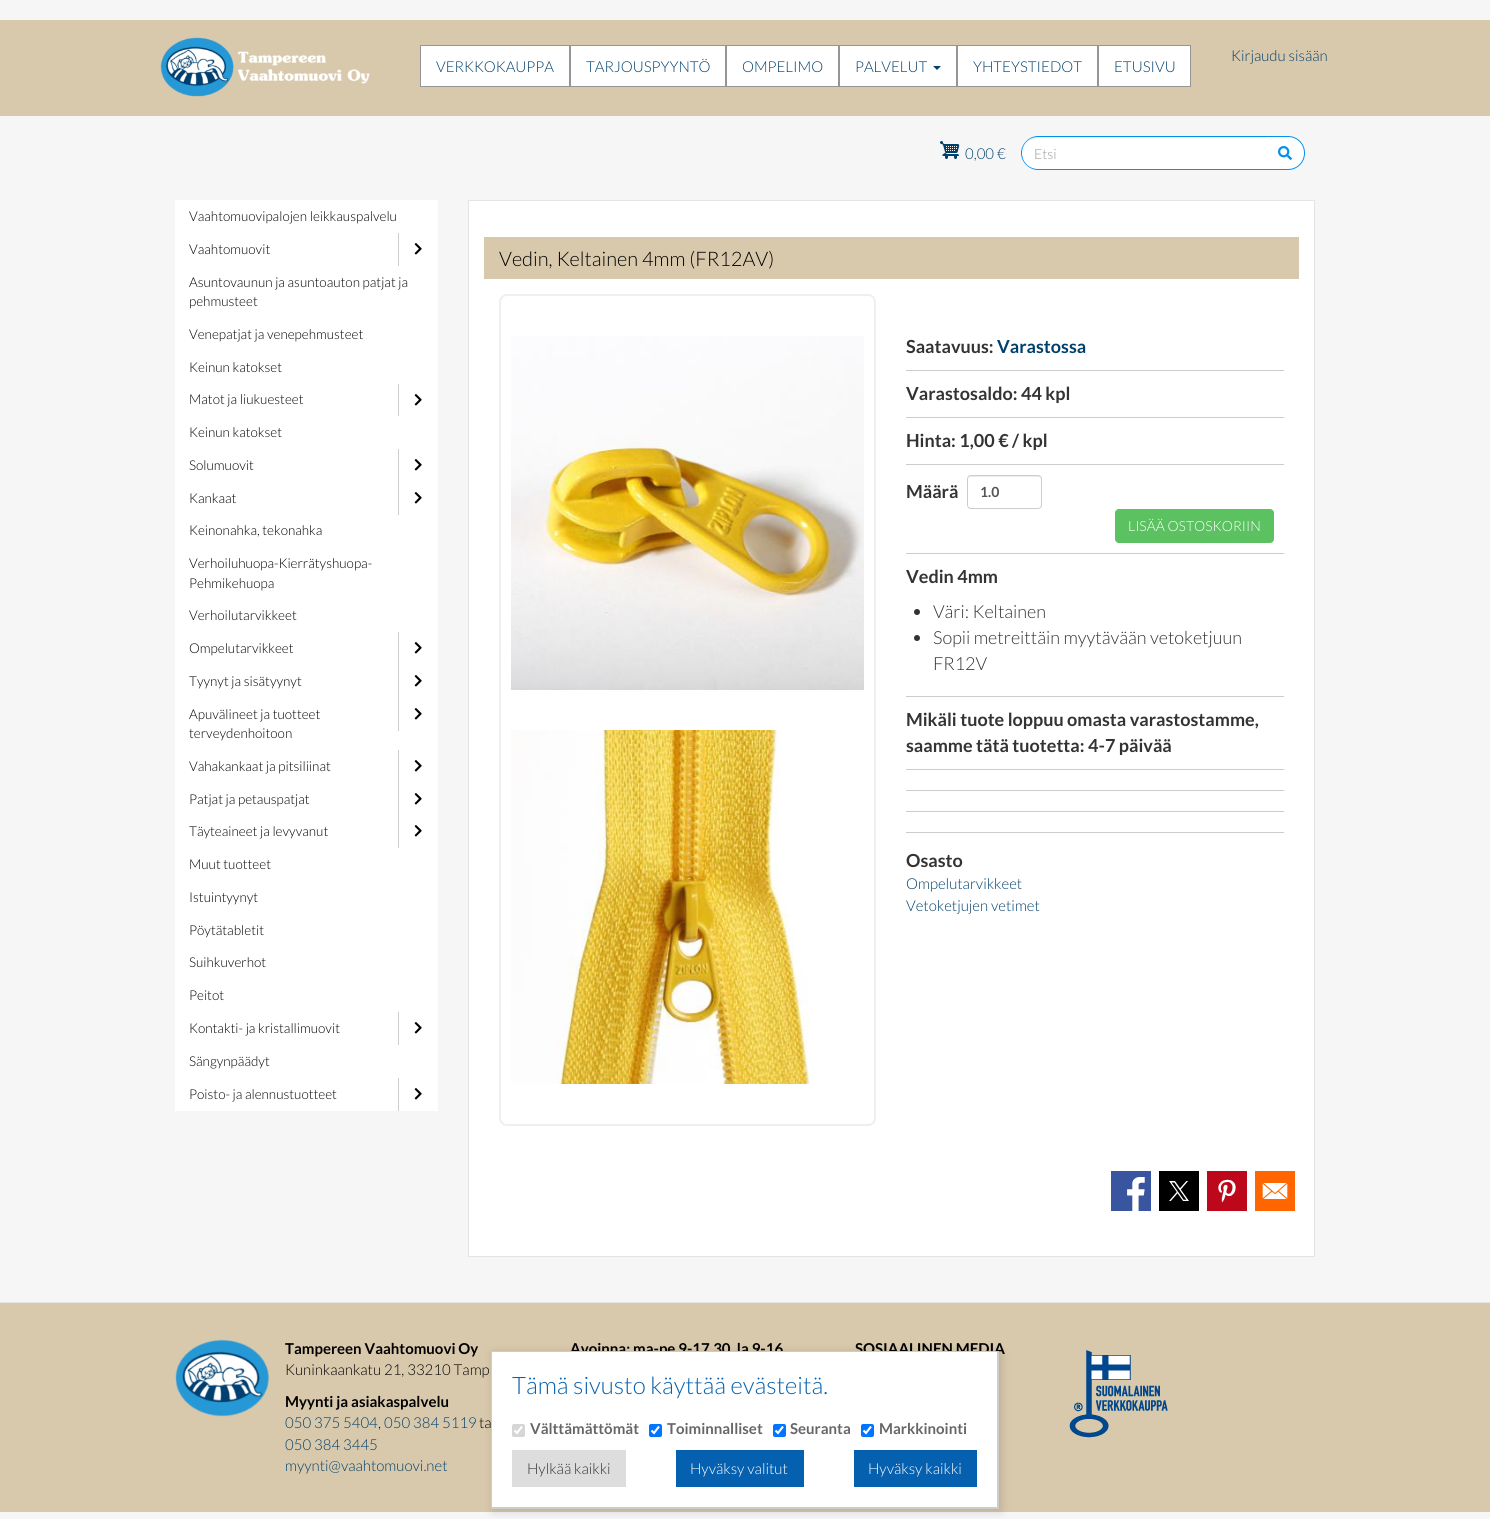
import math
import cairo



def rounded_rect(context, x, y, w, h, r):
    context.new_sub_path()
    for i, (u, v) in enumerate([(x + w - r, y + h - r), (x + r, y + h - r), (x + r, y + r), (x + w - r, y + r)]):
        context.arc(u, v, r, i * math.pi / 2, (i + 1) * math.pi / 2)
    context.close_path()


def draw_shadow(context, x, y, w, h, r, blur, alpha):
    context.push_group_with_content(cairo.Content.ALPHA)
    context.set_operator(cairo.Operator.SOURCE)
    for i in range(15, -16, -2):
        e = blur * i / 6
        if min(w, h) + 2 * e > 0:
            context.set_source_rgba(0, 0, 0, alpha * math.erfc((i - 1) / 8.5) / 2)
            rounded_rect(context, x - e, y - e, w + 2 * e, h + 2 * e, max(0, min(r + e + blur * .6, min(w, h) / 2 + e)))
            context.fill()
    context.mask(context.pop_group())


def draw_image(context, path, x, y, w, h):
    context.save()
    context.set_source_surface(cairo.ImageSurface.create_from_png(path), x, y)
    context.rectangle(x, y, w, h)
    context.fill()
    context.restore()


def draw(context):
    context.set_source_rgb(246 / 255, 246 / 255, 246 / 255)
    context.paint()
    context.set_source_rgb(217 / 255, 201 / 255, 172 / 255)
    context.rectangle(0, 20, 1490, 96)
    context.fill()
    draw_image(context, "images/1.png", 160, 37, 210, 60)
    context.set_source_rgb(1, 1, 1)
    context.rectangle(420.5, 45.5, 149, 41)
    context.fill_preserve()
    context.set_source_rgb(149 / 255, 149 / 255, 149 / 255)
    context.set_line_width(1)
    context.stroke()
    context.set_source_rgb(1, 1, 1)
    context.rectangle(570.5, 45.5, 155, 41)
    context.fill_preserve()
    context.set_source_rgb(149 / 255, 149 / 255, 149 / 255)
    context.stroke()
    context.set_source_rgb(1, 1, 1)
    context.rectangle(726.5, 45.5, 112, 41)
    context.fill_preserve()
    context.set_source_rgb(149 / 255, 149 / 255, 149 / 255)
    context.stroke()
    context.set_source_rgb(1, 1, 1)
    context.rectangle(839.5, 45.5, 117, 41)
    context.fill_preserve()
    context.set_source_rgb(149 / 255, 149 / 255, 149 / 255)
    context.stroke()
    context.set_source_rgb(0, 64 / 255, 109 / 255)
    context.new_path()
    context.move_to(933, 66)
    context.line_to(941, 66)
    context.line_to(937, 70)
    context.close_path()
    context.fill()
    context.set_source_rgb(1, 1, 1)
    context.rectangle(957.5, 45.5, 140, 41)
    context.fill_preserve()
    context.set_source_rgb(149 / 255, 149 / 255, 149 / 255)
    context.stroke()
    context.set_source_rgb(1, 1, 1)
    context.rectangle(1098.5, 45.5, 92, 41)
    context.fill_preserve()
    context.set_source_rgb(149 / 255, 149 / 255, 149 / 255)
    context.stroke()
    draw_image(context, "images/2.png", 940, 141, 20, 18)
    context.set_source_rgb(1, 1, 1)
    context.new_path()
    context.move_to(1038, 136)
    context.line_to(1271, 136)
    context.line_to(1271, 170)
    context.line_to(1038, 170)
    context.curve_to(1028.5, 170, 1021, 162.5, 1021, 153)
    context.curve_to(1021, 143.5, 1028.5, 136, 1038, 136)
    context.close_path()
    context.fill()
    context.set_source_rgb(236 / 255, 236 / 255, 236 / 255)
    context.new_path()
    context.move_to(1038, 138)
    context.line_to(1271, 138)
    context.line_to(1271, 137)
    context.line_to(1038, 137)
    context.curve_to(1029, 137, 1022, 145, 1022, 153)
    context.curve_to(1022, 145, 1029, 138, 1038, 138)
    context.close_path()
    context.fill()
    context.set_source_rgb(0, 145 / 255, 241 / 255)
    context.set_fill_rule(cairo.FillRule.EVEN_ODD)
    context.new_path()
    context.move_to(1038, 136)
    context.line_to(1271, 136)
    context.line_to(1271, 170)
    context.line_to(1038, 170)
    context.curve_to(1029, 170, 1021, 162, 1021, 153)
    context.curve_to(1021, 144, 1029, 136, 1038, 136)
    context.close_path()
    context.move_to(1038, 137)
    context.line_to(1271, 137)
    context.line_to(1271, 169)
    context.line_to(1038, 169)
    context.curve_to(1029, 169, 1022, 162, 1022, 153)
    context.curve_to(1022, 144, 1029, 137, 1038, 137)
    context.close_path()
    context.fill()
    context.set_source_rgb(1, 1, 1)
    context.new_path()
    context.move_to(1266, 136)
    context.line_to(1288, 136)
    context.curve_to(1297.5, 136, 1305, 143.5, 1305, 153)
    context.curve_to(1305, 162.5, 1297.5, 170, 1288, 170)
    context.line_to(1266, 170)
    context.close_path()
    context.fill()
    context.set_source_rgb(0, 145 / 255, 241 / 255)
    context.new_path()
    context.move_to(1266, 136)
    context.line_to(1288, 136)
    context.curve_to(1297.5, 136, 1305, 143.5, 1305, 153)
    context.curve_to(1305, 162.5, 1297.5, 170, 1288, 170)
    context.line_to(1266, 170)
    context.close_path()
    context.move_to(1266, 137)
    context.line_to(1288, 137)
    context.curve_to(1297, 137, 1304, 144, 1304, 153)
    context.curve_to(1304, 162, 1297, 169, 1288, 169)
    context.line_to(1266, 169)
    context.close_path()
    context.fill()
    draw_image(context, "images/3.png", 1278, 146, 14, 14)
    context.set_source_rgb(1, 1, 1)
    context.rectangle(175, 200, 263, 911)
    context.fill()
    context.set_source_rgb(204 / 255, 204 / 255, 204 / 255)
    context.rectangle(398, 233, 1, 33)
    context.fill()
    draw_image(context, "images/4.png", 414, 243, 8, 12)
    context.rectangle(398, 384, 1, 32)
    context.fill()
    draw_image(context, "images/4.png", 414, 394, 8, 12)
    context.rectangle(398, 449, 1, 66)
    context.fill()
    draw_image(context, "images/4.png", 414, 459, 8, 12)
    draw_image(context, "images/4.png", 414, 492, 8, 12)
    context.rectangle(398, 632, 1, 99)
    context.fill()
    draw_image(context, "images/4.png", 414, 642, 8, 12)
    draw_image(context, "images/4.png", 414, 675, 8, 12)
    draw_image(context, "images/4.png", 414, 708, 8, 12)
    context.rectangle(398, 750, 1, 98)
    context.fill()
    draw_image(context, "images/4.png", 414, 760, 8, 12)
    draw_image(context, "images/4.png", 414, 793, 8, 12)
    draw_image(context, "images/4.png", 414, 825, 8, 12)
    context.rectangle(398, 1012, 1, 33)
    context.fill()
    draw_image(context, "images/4.png", 414, 1022, 8, 12)
    context.rectangle(398, 1078, 1, 33)
    context.fill()
    draw_image(context, "images/4.png", 414, 1088, 8, 12)
    context.set_source_rgb(1, 1, 1)
    context.rectangle(468.5, 200.5, 846, 1056)
    context.fill_preserve()
    context.set_source_rgb(228 / 255, 228 / 255, 228 / 255)
    context.stroke()
    context.set_source_rgb(217 / 255, 201 / 255, 172 / 255)
    context.rectangle(484, 237, 815, 42)
    context.fill()
    rounded_rect(context, 500, 295, 375, 830, 7)
    context.set_source_rgb(235 / 255, 240 / 255, 244 / 255)
    context.set_line_width(2)
    context.stroke()
    draw_image(context, "images/5.png", 511, 336, 353, 354)
    draw_image(context, "images/6.png", 511, 730, 299, 354)
    context.set_source_rgb(204 / 255, 204 / 255, 204 / 255)
    context.rectangle(906, 370, 378, 1)
    context.fill()
    context.rectangle(906, 417, 378, 1)
    context.fill()
    context.rectangle(906, 464, 378, 1)
    context.fill()
    context.rectangle(906, 553, 378, 1)
    context.fill()
    context.set_source_rgb(236 / 255, 236 / 255, 236 / 255)
    context.set_fill_rule(cairo.FillRule.WINDING)
    context.new_path()
    context.move_to(971, 477)
    context.line_to(1038, 477)
    context.curve_to(1040, 477, 1041, 478, 1041, 480)
    context.curve_to(1041, 473, 1031, 476, 1027, 476)
    context.line_to(982, 476)
    context.curve_to(978, 476, 968, 473, 968, 480)
    context.curve_to(968, 478, 969, 477, 971, 477)
    context.close_path()
    context.fill()
    rounded_rect(context, 967.5, 475.5, 74, 33, 3.5)
    context.set_source_rgb(204 / 255, 204 / 255, 204 / 255)
    context.set_line_width(1)
    context.stroke()
    context.set_source_rgb(92 / 255, 194 / 255, 97 / 255)
    rounded_rect(context, 1115.5, 509.5, 158, 33, 3.5)
    context.fill_preserve()
    context.stroke()
    context.set_source_rgb(204 / 255, 204 / 255, 204 / 255)
    context.rectangle(906, 696, 378, 1)
    context.fill()
    context.set_source_rgb(51 / 255, 51 / 255, 51 / 255)
    context.arc(917, 612, 3, 0, 2 * math.pi)
    context.fill()
    context.arc(917, 638, 3, 0, 2 * math.pi)
    context.fill()
    context.set_source_rgb(204 / 255, 204 / 255, 204 / 255)
    context.rectangle(906, 769, 378, 1)
    context.fill()
    context.rectangle(906, 790, 378, 1)
    context.fill()
    context.rectangle(906, 811, 378, 1)
    context.fill()
    context.rectangle(906, 832, 378, 1)
    context.fill()
    draw_image(context, "images/7.png", 1111, 1171, 40, 40)
    draw_image(context, "images/8.png", 1159, 1171, 40, 40)
    draw_image(context, "images/9.png", 1207, 1171, 40, 40)
    draw_image(context, "images/10.png", 1255, 1171, 40, 40)
    context.set_source_rgb(217 / 255, 201 / 255, 172 / 255)
    context.rectangle(0, 1303, 1490, 209)
    context.fill()
    context.set_source_rgb(229 / 255, 229 / 255, 229 / 255)
    context.rectangle(0, 1302, 1490, 1)
    context.fill()
    draw_image(context, "images/11.png", 175, 1339, 95, 78)
    draw_image(context, "images/12.png", 1069, 1350, 99, 88)
    context.set_source_rgb(0, 0, 0)
    draw_shadow(context, 493, 1353, 508, 158, 0, 5, 0.15)
    context.select_font_face("Lato Light")
    context.set_font_size(15)
    context.set_source_rgb(0, 64 / 255, 109 / 255)
    context.move_to(436, 72)
    context.show_text("VERKKOKAUPPA")
    context.move_to(586, 72)
    context.show_text("TARJOUSPYYNTÖ")
    context.move_to(742, 72)
    context.show_text("OMPELIMO")
    context.move_to(855, 72)
    context.show_text("PALVELUT")
    context.move_to(973, 72)
    context.show_text("YHTEYSTIEDOT")
    context.move_to(1114, 72)
    context.show_text("ETUSIVU")
    context.move_to(1231, 61)
    context.show_text("Kirjaudu sisään")
    context.move_to(965, 159)
    context.show_text("0,00 €")
    context.set_font_size(14)
    context.set_source_rgb(153 / 255, 153 / 255, 153 / 255)
    context.move_to(1034, 159)
    context.show_text("Etsi")
    context.set_font_size(13.5)
    context.set_source_rgb(0, 0, 0)
    context.move_to(189, 221)
    context.show_text("Vaahtomuovipalojen leikkauspalvelu")
    context.move_to(189, 254)
    context.show_text("Vaahtomuovit")
    context.move_to(189, 287)
    context.show_text("Asuntovaunun ja asuntoauton patjat ja")
    context.move_to(189, 306)
    context.show_text("pehmusteet")
    context.move_to(189, 339)
    context.show_text("Venepatjat ja venepehmusteet")
    context.move_to(189, 372)
    context.show_text("Keinun katokset")
    context.move_to(189, 404)
    context.show_text("Matot ja liukuesteet")
    context.move_to(189, 437)
    context.show_text("Keinun katokset")
    context.move_to(189, 470)
    context.show_text("Solumuovit")
    context.move_to(189, 503)
    context.show_text("Kankaat")
    context.move_to(189, 535)
    context.show_text("Keinonahka, tekonahka")
    context.move_to(189, 568)
    context.show_text("Verhoiluhuopa-Kierrätyshuopa-")
    context.move_to(189, 588)
    context.show_text("Pehmikehuopa")
    context.move_to(189, 620)
    context.show_text("Verhoilutarvikkeet")
    context.move_to(189, 653)
    context.show_text("Ompelutarvikkeet")
    context.move_to(189, 686)
    context.show_text("Tyynyt ja sisätyynyt")
    context.move_to(189, 719)
    context.show_text("Apuvälineet ja tuotteet")
    context.move_to(189, 738)
    context.show_text("terveydenhoitoon")
    context.move_to(189, 771)
    context.show_text("Vahakankaat ja pitsiliinat")
    context.move_to(189, 804)
    context.show_text("Patjat ja petauspatjat")
    context.move_to(189, 836)
    context.show_text("Täyteaineet ja levyvanut")
    context.move_to(189, 869)
    context.show_text("Muut tuotteet")
    context.move_to(189, 902)
    context.show_text("Istuintyynyt")
    context.move_to(189, 935)
    context.show_text("Pöytätabletit")
    context.move_to(189, 967)
    context.show_text("Suihkuverhot")
    context.move_to(189, 1000)
    context.show_text("Peitot")
    context.move_to(189, 1033)
    context.show_text("Kontakti- ja kristallimuovit")
    context.move_to(189, 1066)
    context.show_text("Sängynpäädyt")
    context.move_to(189, 1099)
    context.show_text("Poisto- ja alennustuotteet")
    context.set_font_size(20)
    context.move_to(499, 266)
    context.show_text("Vedin, Keltainen 4mm (FR12AV)")
    context.select_font_face("Lato", cairo.FontSlant.NORMAL, cairo.FontWeight.BOLD)
    context.set_font_size(18)
    context.set_source_rgb(51 / 255, 51 / 255, 51 / 255)
    context.move_to(906, 353)
    context.show_text("Saatavuus:")
    context.set_source_rgb(0, 64 / 255, 109 / 255)
    context.move_to(997, 353)
    context.show_text("Varastossa")
    context.set_source_rgb(51 / 255, 51 / 255, 51 / 255)
    context.move_to(906, 400)
    context.show_text("Varastosaldo: 44 kpl")
    context.move_to(906, 447)
    context.show_text("Hinta: 1,00 € / kpl")
    context.move_to(906, 498)
    context.show_text("Määrä")
    context.set_font_size(14)
    context.set_source_rgb(85 / 255, 85 / 255, 85 / 255)
    context.move_to(980, 497)
    context.show_text("1.0")
    context.select_font_face("Lato Light")
    context.set_source_rgb(1, 1, 1)
    context.move_to(1128, 531)
    context.show_text("LISÄÄ OSTOSKORIIN")
    context.select_font_face("Lato", cairo.FontSlant.NORMAL, cairo.FontWeight.BOLD)
    context.set_font_size(18)
    context.set_source_rgb(51 / 255, 51 / 255, 51 / 255)
    context.move_to(906, 583)
    context.show_text("Vedin 4mm")
    context.select_font_face("Lato Light")
    context.move_to(933, 618)
    context.show_text("Väri: Keltainen")
    context.move_to(933, 644)
    context.show_text("Sopii metreittäin myytävään vetoketjuun")
    context.move_to(933, 670)
    context.show_text("FR12V")
    context.select_font_face("Lato", cairo.FontSlant.NORMAL, cairo.FontWeight.BOLD)
    context.move_to(906, 726)
    context.show_text("Mikäli tuote loppuu omasta varastostamme,")
    context.move_to(906, 752)
    context.show_text("saamme tätä tuotetta: 4-7 päivää")
    context.move_to(906, 867)
    context.show_text("Osasto")
    context.select_font_face("Lato Light")
    context.set_font_size(15)
    context.set_source_rgb(0, 64 / 255, 109 / 255)
    context.move_to(906, 889)
    context.show_text("Ompelutarvikkeet")
    context.move_to(906, 911)
    context.show_text("Vetoketjujen vetimet")
    context.select_font_face("Lato", cairo.FontSlant.NORMAL, cairo.FontWeight.BOLD)
    context.set_source_rgb(0, 0, 0)
    context.move_to(285, 1354)
    context.show_text("Tampereen Vaahtomuovi Oy")
    context.select_font_face("Lato Light")
    context.move_to(285, 1375)
    context.show_text("Kuninkaankatu 21, 33210 Tamp")
    context.select_font_face("Lato", cairo.FontSlant.NORMAL, cairo.FontWeight.BOLD)
    context.move_to(285, 1407)
    context.show_text("Myynti ja asiakaspalvelu")
    context.select_font_face("Lato Light")
    context.set_source_rgb(0, 64 / 255, 109 / 255)
    context.move_to(285, 1428)
    context.show_text("050 375 5404")
    context.set_source_rgb(0, 0, 0)
    context.move_to(378, 1428)
    context.show_text(",")
    context.set_source_rgb(0, 64 / 255, 109 / 255)
    context.move_to(384, 1428)
    context.show_text("050 384 5119")
    context.set_source_rgb(0, 0, 0)
    context.move_to(479, 1428)
    context.show_text("ta")
    context.set_source_rgb(0, 64 / 255, 109 / 255)
    context.move_to(285, 1450)
    context.show_text("050 384 3445")
    context.move_to(285, 1471)
    context.show_text("myynti@vaahtomuovi.net")
    context.select_font_face("Lato", cairo.FontSlant.NORMAL, cairo.FontWeight.BOLD)
    context.set_source_rgb(0, 0, 0)
    context.move_to(570, 1354)
    context.show_text("Avoinna: ma-pe 9-17.30, la 9-16")
    context.move_to(855, 1354)
    context.show_text("SOSIAALINEN MEDIA")
    context.set_source_rgb(1, 1, 1)
    context.rectangle(492, 1352, 505, 155)
    context.fill()
    context.set_source_rgb(204 / 255, 204 / 255, 204 / 255)
    context.rectangle(491, 1351, 508, 1)
    context.fill()
    context.rectangle(997, 1351, 2, 158)
    context.fill()
    context.rectangle(491, 1507, 508, 2)
    context.fill()
    context.rectangle(491, 1351, 1, 158)
    context.fill()
    context.select_font_face("Lato Light")
    context.set_font_size(24)
    context.set_source_rgb(5 / 255, 96 / 255, 175 / 255)
    context.move_to(512, 1394)
    context.show_text("Tämä sivusto käyttää evästeitä.")
    context.set_source_rgb(214 / 255, 214 / 255, 214 / 255)
    rounded_rect(context, 512, 1424, 13, 13, 2)
    context.fill()
    context.new_path()
    context.move_to(514.5, 1430.5)
    context.line_to(517, 1433)
    context.line_to(522, 1426.5)
    context.set_source_rgb(1, 1, 1)
    context.set_line_width(2.1)
    context.stroke()
    context.select_font_face("Lato", cairo.FontSlant.NORMAL, cairo.FontWeight.BOLD)
    context.set_font_size(15)
    context.set_source_rgb(102 / 255, 102 / 255, 102 / 255)
    context.move_to(530, 1434)
    context.show_text("Välttämättömät")
    context.set_source_rgb(0, 117 / 255, 1)
    rounded_rect(context, 649, 1424, 13, 13, 2)
    context.fill()
    context.new_path()
    context.move_to(651.5, 1430.5)
    context.line_to(654, 1433)
    context.line_to(659, 1426.5)
    context.set_source_rgb(1, 1, 1)
    context.stroke()
    context.set_source_rgb(102 / 255, 102 / 255, 102 / 255)
    context.move_to(667, 1434)
    context.show_text("Toiminnalliset")
    context.set_source_rgb(0, 117 / 255, 1)
    rounded_rect(context, 773, 1424, 13, 13, 2)
    context.fill()
    context.new_path()
    context.move_to(775.5, 1430.5)
    context.line_to(778, 1433)
    context.line_to(783, 1426.5)
    context.set_source_rgb(1, 1, 1)
    context.stroke()
    context.set_source_rgb(102 / 255, 102 / 255, 102 / 255)
    context.move_to(790, 1434)
    context.show_text("Seuranta")
    context.set_source_rgb(0, 117 / 255, 1)
    rounded_rect(context, 861, 1424, 13, 13, 2)
    context.fill()
    context.new_path()
    context.move_to(863.5, 1430.5)
    context.line_to(866, 1433)
    context.line_to(871, 1426.5)
    context.set_source_rgb(1, 1, 1)
    context.stroke()
    context.set_source_rgb(102 / 255, 102 / 255, 102 / 255)
    context.move_to(879, 1434)
    context.show_text("Markkinointi")
    context.set_source_rgb(221 / 255, 221 / 255, 221 / 255)
    context.rectangle(512, 1450, 114, 37)
    context.fill()
    context.select_font_face("Lato Light")
    context.set_source_rgb(51 / 255, 51 / 255, 51 / 255)
    context.move_to(527, 1474)
    context.show_text("Hylkää kaikki")
    context.set_source_rgb(5 / 255, 96 / 255, 175 / 255)
    context.rectangle(676, 1450, 128, 37)
    context.fill()
    context.set_source_rgb(1, 1, 1)
    context.move_to(690, 1474)
    context.show_text("Hyväksy valitut")
    context.set_source_rgb(5 / 255, 96 / 255, 175 / 255)
    context.rectangle(854, 1450, 123, 37)
    context.fill()
    context.set_source_rgb(1, 1, 1)
    context.move_to(868, 1474)
    context.show_text("Hyväksy kaikki")


surface = cairo.ImageSurface(cairo.Format.RGB24, 1490, 1519)
context = cairo.Context(surface)
options = cairo.FontOptions()
options.set_hint_metrics(cairo.HintMetrics.OFF)
options.set_hint_style(cairo.HintStyle.NONE)
context.set_font_options(options)
context.set_miter_limit(4)
draw(context)
surface.write_to_png("out.png")
